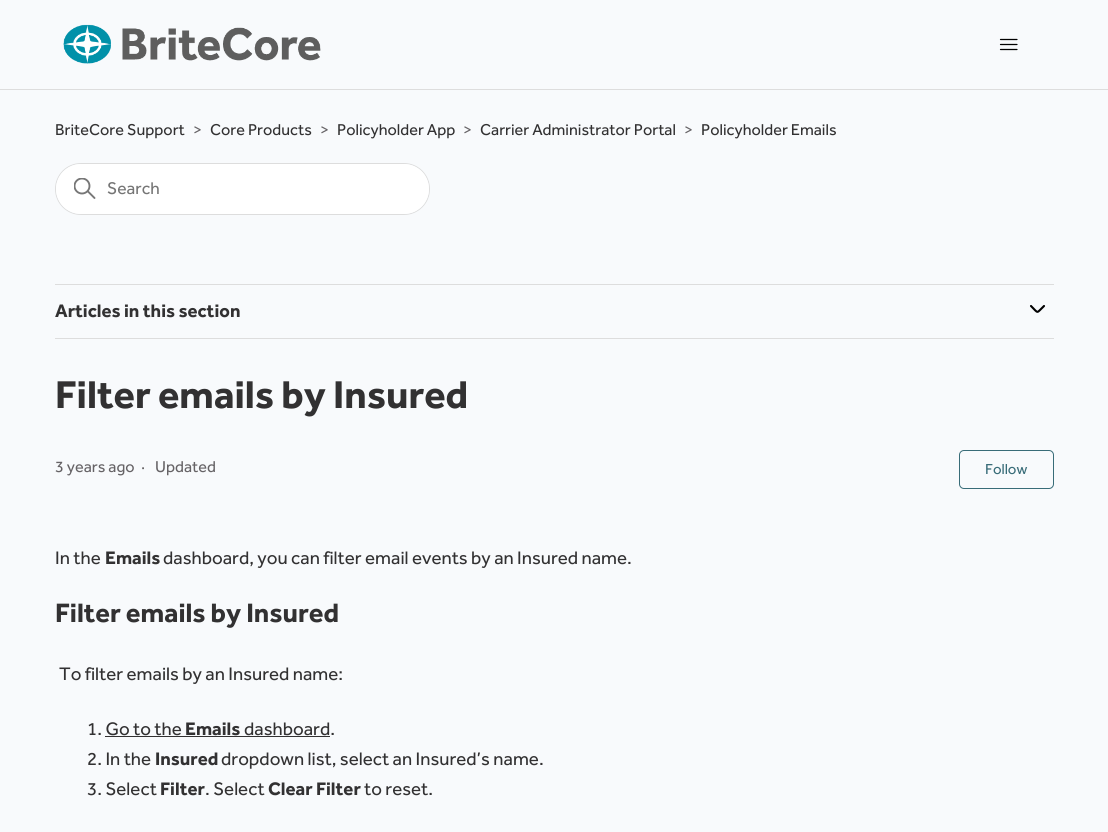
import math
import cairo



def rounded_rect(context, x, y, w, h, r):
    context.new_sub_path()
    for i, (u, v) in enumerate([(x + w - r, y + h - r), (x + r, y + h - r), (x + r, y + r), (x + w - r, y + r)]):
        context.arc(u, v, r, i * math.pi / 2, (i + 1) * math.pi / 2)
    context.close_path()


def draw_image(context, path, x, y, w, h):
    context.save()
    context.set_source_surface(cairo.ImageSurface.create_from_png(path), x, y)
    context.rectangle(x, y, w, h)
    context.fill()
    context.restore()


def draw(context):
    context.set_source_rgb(248 / 255, 250 / 255, 252 / 255)
    context.paint()
    draw_image(context, "images/1.png", 63, 24, 258, 40)
    context.new_path()
    context.move_to(1000.5, 39.5)
    context.line_to(1017, 39.5)
    context.move_to(1000.5, 44.5)
    context.line_to(1017, 44.5)
    context.move_to(1000.5, 49.5)
    context.line_to(1017, 49.5)
    context.set_source_rgb(0, 0, 0)
    context.set_line_width(1.2)
    context.set_line_cap(cairo.LineCap.ROUND)
    context.stroke()
    context.set_source_rgb(221 / 255, 221 / 255, 221 / 255)
    context.rectangle(0, 89, 1108, 1)
    context.fill()
    rounded_rect(context, 55.5, 163.5, 374, 51, 25.5)
    context.set_line_width(1)
    context.set_line_cap(cairo.LineCap.BUTT)
    context.stroke()
    context.set_source_rgb(1, 1, 1)
    rounded_rect(context, 56, 164, 373, 50, 25)
    context.fill()
    context.save()
    context.rectangle(74, 178, 22, 22)
    context.clip()
    context.arc(82, 186, 7.5, 0, 2 * math.pi)
    context.set_source_rgb(119 / 255, 119 / 255, 119 / 255)
    context.set_line_width(1.9)
    context.stroke()
    context.restore()
    context.new_path()
    context.move_to(94.5, 198)
    context.line_to(88, 191.5)
    context.set_source_rgb(119 / 255, 119 / 255, 119 / 255)
    context.set_line_width(1.9)
    context.set_line_cap(cairo.LineCap.ROUND)
    context.stroke()
    context.set_source_rgb(221 / 255, 221 / 255, 221 / 255)
    context.rectangle(55, 284, 999, 1)
    context.fill()
    context.rectangle(55, 338, 999, 1)
    context.fill()
    context.new_path()
    context.move_to(1031, 306)
    context.curve_to(1039, 314, 1036, 313.5, 1044, 306)
    context.set_source_rgb(0, 0, 0)
    context.set_line_width(2.1)
    context.stroke()
    rounded_rect(context, 959.5, 450.5, 94, 38, 4.5)
    context.set_source_rgb(56 / 255, 108 / 255, 120 / 255)
    context.set_line_width(1)
    context.set_line_cap(cairo.LineCap.BUTT)
    context.stroke()
    context.set_source_rgb(50 / 255, 49 / 255, 50 / 255)
    context.rectangle(105, 736, 225, 1)
    context.fill()
    context.select_font_face("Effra")
    context.set_font_size(16.25)
    context.move_to(55, 135)
    context.show_text("BriteCore Support")
    context.set_source_rgb(102 / 255, 99 / 255, 102 / 255)
    context.move_to(193, 135)
    context.show_text(">")
    context.set_source_rgb(50 / 255, 49 / 255, 50 / 255)
    context.move_to(210, 135)
    context.show_text("Core Products")
    context.set_source_rgb(102 / 255, 99 / 255, 102 / 255)
    context.move_to(320, 135)
    context.show_text(">")
    context.set_source_rgb(50 / 255, 49 / 255, 50 / 255)
    context.move_to(337, 135)
    context.show_text("Policyholder App")
    context.set_source_rgb(102 / 255, 99 / 255, 102 / 255)
    context.move_to(463, 135)
    context.show_text(">")
    context.set_source_rgb(50 / 255, 49 / 255, 50 / 255)
    context.move_to(480, 135)
    context.show_text("Carrier Administrator Portal")
    context.set_source_rgb(102 / 255, 99 / 255, 102 / 255)
    context.move_to(684, 135)
    context.show_text(">")
    context.set_source_rgb(50 / 255, 49 / 255, 50 / 255)
    context.move_to(701, 135)
    context.show_text("Policyholder Emails")
    context.set_font_size(17.5)
    context.set_source_rgb(117 / 255, 117 / 255, 117 / 255)
    context.move_to(107, 194)
    context.show_text("Search")
    context.select_font_face("Effra", cairo.FontSlant.NORMAL, cairo.FontWeight.BOLD)
    context.set_font_size(18.75)
    context.set_source_rgb(50 / 255, 49 / 255, 50 / 255)
    context.move_to(55, 317)
    context.show_text("Articles in this section")
    context.set_font_size(40)
    context.move_to(55, 408)
    context.show_text("Filter emails by Insured")
    context.select_font_face("Effra")
    context.set_font_size(16.25)
    context.set_source_rgb(102 / 255, 99 / 255, 102 / 255)
    context.move_to(55, 472)
    context.show_text("3 years ago")
    context.move_to(141, 472)
    context.show_text("·")
    context.move_to(155, 472)
    context.show_text("Updated")
    context.set_font_size(15)
    context.set_source_rgb(56 / 255, 108 / 255, 120 / 255)
    context.move_to(985, 474)
    context.show_text("Follow")
    context.set_font_size(18.75)
    context.set_source_rgb(50 / 255, 49 / 255, 50 / 255)
    context.move_to(55, 564)
    context.show_text("In the")
    context.select_font_face("Effra", cairo.FontSlant.NORMAL, cairo.FontWeight.BOLD)
    context.move_to(105, 564)
    context.show_text("Emails")
    context.select_font_face("Effra")
    context.move_to(163, 564)
    context.show_text("dashboard, you can filter email events by an Insured name.")
    context.select_font_face("Effra", cairo.FontSlant.NORMAL, cairo.FontWeight.BOLD)
    context.set_font_size(27.5)
    context.move_to(55, 622)
    context.show_text("Filter emails by Insured")
    context.select_font_face("Effra")
    context.set_font_size(18.75)
    context.move_to(59, 680)
    context.show_text("To filter emails by an Insured name:")
    context.move_to(87, 735)
    context.show_text("1. Go to the")
    context.select_font_face("Effra", cairo.FontSlant.NORMAL, cairo.FontWeight.BOLD)
    context.move_to(185, 735)
    context.show_text("Emails")
    context.select_font_face("Effra")
    context.move_to(244, 735)
    context.show_text("dashboard.")
    context.move_to(87, 765)
    context.show_text("2. In the")
    context.select_font_face("Effra", cairo.FontSlant.NORMAL, cairo.FontWeight.BOLD)
    context.move_to(155, 765)
    context.show_text("Insured")
    context.select_font_face("Effra")
    context.move_to(221, 765)
    context.show_text("dropdown list, select an Insured’s name.")
    context.move_to(87, 795)
    context.show_text("3. Select")
    context.select_font_face("Effra", cairo.FontSlant.NORMAL, cairo.FontWeight.BOLD)
    context.move_to(160, 795)
    context.show_text("Filter")
    context.select_font_face("Effra")
    context.move_to(205, 795)
    context.show_text(". Select")
    context.select_font_face("Effra", cairo.FontSlant.NORMAL, cairo.FontWeight.BOLD)
    context.move_to(268, 795)
    context.show_text("Clear Filter")
    context.select_font_face("Effra")
    context.move_to(364, 795)
    context.show_text("to reset.")


surface = cairo.ImageSurface(cairo.Format.RGB24, 1108, 832)
context = cairo.Context(surface)
options = cairo.FontOptions()
options.set_hint_metrics(cairo.HintMetrics.OFF)
options.set_hint_style(cairo.HintStyle.NONE)
context.set_font_options(options)
context.set_miter_limit(4)
draw(context)
surface.write_to_png("out.png")
